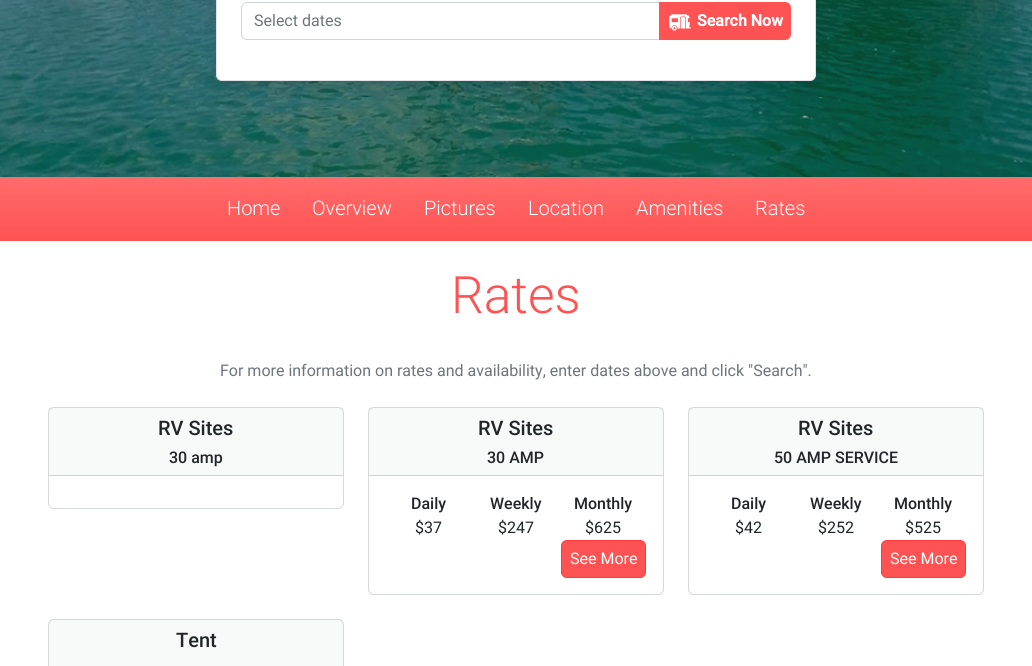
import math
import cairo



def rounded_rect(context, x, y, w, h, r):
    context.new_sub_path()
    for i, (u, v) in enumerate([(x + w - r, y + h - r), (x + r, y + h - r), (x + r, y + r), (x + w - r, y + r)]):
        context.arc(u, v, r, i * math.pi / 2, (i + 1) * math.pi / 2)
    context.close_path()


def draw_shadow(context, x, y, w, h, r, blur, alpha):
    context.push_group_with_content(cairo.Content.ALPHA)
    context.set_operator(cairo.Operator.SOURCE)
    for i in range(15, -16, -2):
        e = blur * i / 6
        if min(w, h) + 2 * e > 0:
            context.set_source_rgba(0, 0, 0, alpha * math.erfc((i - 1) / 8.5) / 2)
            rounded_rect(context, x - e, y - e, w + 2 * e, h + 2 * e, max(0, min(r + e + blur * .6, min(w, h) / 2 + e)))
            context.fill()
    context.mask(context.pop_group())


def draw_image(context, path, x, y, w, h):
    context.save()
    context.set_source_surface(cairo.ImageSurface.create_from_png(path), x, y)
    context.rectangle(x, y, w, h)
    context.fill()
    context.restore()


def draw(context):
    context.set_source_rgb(1, 1, 1)
    context.paint()
    draw_image(context, "images/1.png", 0, 0, 1032, 177)
    context.set_source_rgb(23 / 255, 35 / 255, 44 / 255)
    draw_shadow(context, 216, -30, 600, 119, 6, 8, 0.15)
    context.set_source_rgb(1, 1, 1)
    rounded_rect(context, 216.5, -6.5, 599, 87, 5.5)
    context.fill_preserve()
    context.set_source_rgb(222 / 255, 226 / 255, 230 / 255)
    context.set_line_width(1)
    context.stroke()
    context.new_path()
    context.move_to(247, 2.5)
    context.line_to(659.5, 2.5)
    context.line_to(659.5, 39.5)
    context.line_to(247, 39.5)
    context.curve_to(244, 39.5, 241.5, 37, 241.5, 34)
    context.line_to(241.5, 8)
    context.curve_to(241.5, 5, 244, 2.5, 247, 2.5)
    context.close_path()
    context.set_source_rgb(206 / 255, 212 / 255, 218 / 255)
    context.stroke()
    context.set_source_rgb(1, 82 / 255, 82 / 255)
    context.new_path()
    context.move_to(659, 2)
    context.line_to(785, 2)
    context.curve_to(788.5, 2, 791, 4.5, 791, 8)
    context.line_to(791, 34)
    context.curve_to(791, 37.5, 788.5, 40, 785, 40)
    context.line_to(659, 40)
    context.close_path()
    context.fill()
    draw_image(context, "images/2.png", 669, 14, 22, 17)
    gradient = cairo.LinearGradient(516, 177, 516, 241)
    gradient.add_color_stop_rgba(0, 1, 108 / 255, 108 / 255, 1)
    gradient.add_color_stop_rgba(1, 1, 82 / 255, 82 / 255, 1)
    context.set_source(gradient)
    context.rectangle(0, 177, 1032, 64)
    context.fill()
    rounded_rect(context, 48.5, 407.5, 295, 101, 5.5)
    context.set_source_rgb(214 / 255, 216 / 255, 218 / 255)
    context.stroke()
    context.set_source_rgba(23 / 255, 35 / 255, 44 / 255, 0.03)
    context.rectangle(49, 408, 294, 67)
    context.fill()
    context.set_source_rgb(208 / 255, 211 / 255, 213 / 255)
    context.rectangle(49, 475, 294, 1)
    context.fill()
    rounded_rect(context, 368.5, 407.5, 295, 187, 5.5)
    context.set_source_rgb(214 / 255, 216 / 255, 218 / 255)
    context.stroke()
    context.set_source_rgba(23 / 255, 35 / 255, 44 / 255, 0.03)
    context.rectangle(369, 408, 294, 67)
    context.fill()
    context.set_source_rgb(208 / 255, 211 / 255, 213 / 255)
    context.rectangle(369, 475, 294, 1)
    context.fill()
    context.set_source_rgb(1, 82 / 255, 82 / 255)
    rounded_rect(context, 561.5, 540.5, 84, 37, 5.5)
    context.fill_preserve()
    context.set_source_rgb(1, 57 / 255, 57 / 255)
    context.stroke()
    rounded_rect(context, 688.5, 407.5, 295, 187, 5.5)
    context.set_source_rgb(214 / 255, 216 / 255, 218 / 255)
    context.stroke()
    context.set_source_rgba(23 / 255, 35 / 255, 44 / 255, 0.03)
    context.rectangle(689, 408, 294, 67)
    context.fill()
    context.set_source_rgb(208 / 255, 211 / 255, 213 / 255)
    context.rectangle(689, 475, 294, 1)
    context.fill()
    context.set_source_rgb(1, 82 / 255, 82 / 255)
    rounded_rect(context, 881.5, 540.5, 84, 37, 5.5)
    context.fill_preserve()
    context.set_source_rgb(1, 57 / 255, 57 / 255)
    context.stroke()
    rounded_rect(context, 48.5, 619.5, 295, 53, 5.5)
    context.set_source_rgb(214 / 255, 216 / 255, 218 / 255)
    context.stroke()
    context.set_source_rgba(23 / 255, 35 / 255, 44 / 255, 0.03)
    context.rectangle(49, 620, 294, 46)
    context.fill()
    context.select_font_face("Roboto")
    context.set_font_size(16)
    context.set_source_rgb(108 / 255, 117 / 255, 125 / 255)
    context.move_to(254, 26)
    context.show_text("Select dates")
    context.select_font_face("Roboto", cairo.FontSlant.NORMAL, cairo.FontWeight.BOLD)
    context.set_source_rgb(1, 1, 1)
    context.move_to(697, 26)
    context.show_text("Search Now")
    context.select_font_face("Roboto Light")
    context.set_font_size(20)
    context.move_to(227, 215)
    context.show_text("Home")
    context.move_to(312, 215)
    context.show_text("Overview")
    context.move_to(424, 215)
    context.show_text("Pictures")
    context.move_to(528, 215)
    context.show_text("Location")
    context.move_to(636, 215)
    context.show_text("Amenities")
    context.move_to(755, 215)
    context.show_text("Rates")
    context.set_font_size(51.5)
    context.set_source_rgb(1, 82 / 255, 82 / 255)
    context.move_to(451, 313)
    context.show_text("Rates")
    context.select_font_face("Roboto")
    context.set_font_size(16)
    context.set_source_rgb(108 / 255, 117 / 255, 125 / 255)
    context.move_to(220, 376)
    context.show_text("For more information on rates and availability, enter dates above and click \"Search\".")
    context.select_font_face("Roboto Medium")
    context.set_font_size(20)
    context.set_source_rgb(33 / 255, 37 / 255, 41 / 255)
    context.move_to(158, 435)
    context.show_text("RV Sites")
    context.set_font_size(16)
    context.move_to(169, 463)
    context.show_text("30 amp")
    context.set_font_size(20)
    context.move_to(478, 435)
    context.show_text("RV Sites")
    context.set_font_size(16)
    context.move_to(487, 463)
    context.show_text("30 AMP")
    context.move_to(411, 509)
    context.show_text("Daily")
    context.select_font_face("Roboto")
    context.move_to(415, 533)
    context.show_text("$37")
    context.select_font_face("Roboto Medium")
    context.move_to(490, 509)
    context.show_text("Weekly")
    context.select_font_face("Roboto")
    context.move_to(498, 533)
    context.show_text("$247")
    context.select_font_face("Roboto Medium")
    context.move_to(574, 509)
    context.show_text("Monthly")
    context.select_font_face("Roboto")
    context.move_to(585, 533)
    context.show_text("$625")
    context.set_source_rgb(1, 1, 1)
    context.move_to(570, 564)
    context.show_text("See More")
    context.select_font_face("Roboto Medium")
    context.set_font_size(20)
    context.set_source_rgb(33 / 255, 37 / 255, 41 / 255)
    context.move_to(798, 435)
    context.show_text("RV Sites")
    context.set_font_size(16)
    context.move_to(774, 463)
    context.show_text("50 AMP SERVICE")
    context.move_to(731, 509)
    context.show_text("Daily")
    context.select_font_face("Roboto")
    context.move_to(735, 533)
    context.show_text("$42")
    context.select_font_face("Roboto Medium")
    context.move_to(810, 509)
    context.show_text("Weekly")
    context.select_font_face("Roboto")
    context.move_to(818, 533)
    context.show_text("$252")
    context.select_font_face("Roboto Medium")
    context.move_to(894, 509)
    context.show_text("Monthly")
    context.select_font_face("Roboto")
    context.move_to(905, 533)
    context.show_text("$525")
    context.set_source_rgb(1, 1, 1)
    context.move_to(890, 564)
    context.show_text("See More")
    context.select_font_face("Roboto Medium")
    context.set_font_size(20)
    context.set_source_rgb(33 / 255, 37 / 255, 41 / 255)
    context.move_to(176, 647)
    context.show_text("Tent")


surface = cairo.ImageSurface(cairo.Format.RGB24, 1032, 666)
context = cairo.Context(surface)
options = cairo.FontOptions()
options.set_hint_metrics(cairo.HintMetrics.OFF)
options.set_hint_style(cairo.HintStyle.NONE)
context.set_font_options(options)
context.set_miter_limit(4)
draw(context)
surface.write_to_png("out.png")
